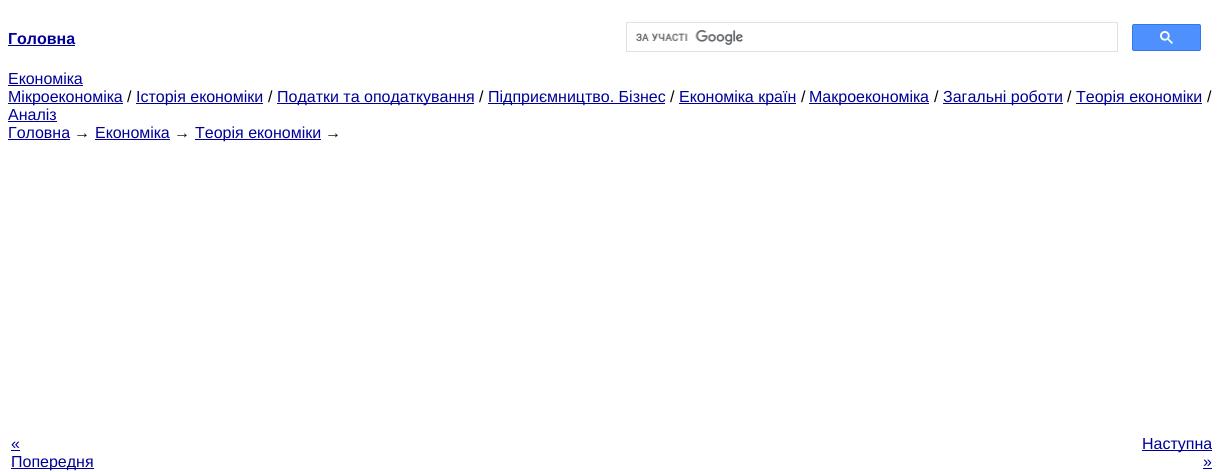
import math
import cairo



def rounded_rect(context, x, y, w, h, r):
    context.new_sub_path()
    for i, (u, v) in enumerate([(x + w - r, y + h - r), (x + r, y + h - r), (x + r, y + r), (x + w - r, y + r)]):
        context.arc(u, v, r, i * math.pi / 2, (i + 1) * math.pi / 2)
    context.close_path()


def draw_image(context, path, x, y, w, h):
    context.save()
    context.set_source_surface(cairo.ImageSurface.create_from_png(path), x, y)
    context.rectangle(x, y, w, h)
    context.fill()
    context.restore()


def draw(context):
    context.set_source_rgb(1, 1, 1)
    context.paint()
    context.set_source_rgb(0, 0, 153 / 255)
    context.rectangle(8, 45, 67, 1)
    context.fill()
    context.rectangle(626.5, 22.5, 491, 29)
    context.set_source_rgb(223 / 255, 225 / 255, 229 / 255)
    context.set_line_width(1)
    context.stroke()
    draw_image(context, "images/1.png", 636, 30, 107, 15)
    context.set_source_rgb(77 / 255, 144 / 255, 254 / 255)
    rounded_rect(context, 1132.5, 24.5, 68, 26, 1.5)
    context.fill_preserve()
    context.set_source_rgb(48 / 255, 121 / 255, 237 / 255)
    context.stroke()
    draw_image(context, "images/2.png", 1160, 31, 13, 13)
    context.set_source_rgb(0, 0, 153 / 255)
    context.rectangle(8, 85, 75, 1)
    context.fill()
    context.rectangle(8, 103, 115, 1)
    context.fill()
    context.rectangle(136, 103, 127, 1)
    context.fill()
    context.rectangle(277, 103, 197, 1)
    context.fill()
    context.rectangle(488, 103, 177, 1)
    context.fill()
    context.rectangle(679, 103, 117, 1)
    context.fill()
    context.rectangle(809, 103, 120, 1)
    context.fill()
    context.rectangle(943, 103, 120, 1)
    context.fill()
    context.rectangle(1076, 103, 126, 1)
    context.fill()
    context.rectangle(8, 121, 49, 1)
    context.fill()
    context.rectangle(8, 139, 62, 1)
    context.fill()
    context.rectangle(95, 139, 75, 1)
    context.fill()
    context.rectangle(195, 139, 126, 1)
    context.fill()
    context.rectangle(11, 450, 9, 1)
    context.fill()
    context.rectangle(11, 468, 83, 1)
    context.fill()
    context.rectangle(1142, 450, 70, 1)
    context.fill()
    context.rectangle(1203, 468, 9, 1)
    context.fill()
    context.select_font_face("Liberation Sans", cairo.FontSlant.NORMAL, cairo.FontWeight.BOLD)
    context.set_font_size(16)
    context.move_to(8, 44)
    context.show_text("Головна")
    context.select_font_face("Liberation Sans")
    context.move_to(8, 84)
    context.show_text("Економіка")
    context.move_to(8, 102)
    context.show_text("Мікроекономіка")
    context.set_source_rgb(0, 0, 0)
    context.move_to(127, 102)
    context.show_text("/")
    context.set_source_rgb(0, 0, 153 / 255)
    context.move_to(136, 102)
    context.show_text("Історія економіки")
    context.set_source_rgb(0, 0, 0)
    context.move_to(268, 102)
    context.show_text("/")
    context.set_source_rgb(0, 0, 153 / 255)
    context.move_to(277, 102)
    context.show_text("Податки та оподаткування")
    context.set_source_rgb(0, 0, 0)
    context.move_to(479, 102)
    context.show_text("/")
    context.set_source_rgb(0, 0, 153 / 255)
    context.move_to(488, 102)
    context.show_text("Підприємництво. Бізнес")
    context.set_source_rgb(0, 0, 0)
    context.move_to(670, 102)
    context.show_text("/")
    context.set_source_rgb(0, 0, 153 / 255)
    context.move_to(679, 102)
    context.show_text("Економіка країн")
    context.set_source_rgb(0, 0, 0)
    context.move_to(801, 102)
    context.show_text("/")
    context.set_source_rgb(0, 0, 153 / 255)
    context.move_to(809, 102)
    context.show_text("Макроекономіка")
    context.set_source_rgb(0, 0, 0)
    context.move_to(934, 102)
    context.show_text("/")
    context.set_source_rgb(0, 0, 153 / 255)
    context.move_to(943, 102)
    context.show_text("Загальні роботи")
    context.set_source_rgb(0, 0, 0)
    context.move_to(1067, 102)
    context.show_text("/")
    context.set_source_rgb(0, 0, 153 / 255)
    context.move_to(1076, 102)
    context.show_text("Теорія економіки")
    context.set_source_rgb(0, 0, 0)
    context.move_to(1207, 102)
    context.show_text("/")
    context.set_source_rgb(0, 0, 153 / 255)
    context.move_to(8, 120)
    context.show_text("Аналіз")
    context.move_to(8, 138)
    context.show_text("Головна")
    context.set_source_rgb(0, 0, 0)
    context.move_to(74, 138)
    context.show_text("→")
    context.set_source_rgb(0, 0, 153 / 255)
    context.move_to(95, 138)
    context.show_text("Економіка")
    context.set_source_rgb(0, 0, 0)
    context.move_to(174, 138)
    context.show_text("→")
    context.set_source_rgb(0, 0, 153 / 255)
    context.move_to(195, 138)
    context.show_text("Теорія економіки")
    context.set_source_rgb(0, 0, 0)
    context.move_to(325, 138)
    context.show_text("→")
    context.set_source_rgb(0, 0, 153 / 255)
    context.move_to(11, 449)
    context.show_text("«")
    context.move_to(11, 467)
    context.show_text("Попередня")
    context.move_to(1142, 449)
    context.show_text("Наступна")
    context.move_to(1203, 467)
    context.show_text("»")


surface = cairo.ImageSurface(cairo.Format.RGB24, 1223, 472)
context = cairo.Context(surface)
options = cairo.FontOptions()
options.set_hint_metrics(cairo.HintMetrics.OFF)
options.set_hint_style(cairo.HintStyle.NONE)
context.set_font_options(options)
context.set_miter_limit(4)
draw(context)
surface.write_to_png("out.png")
